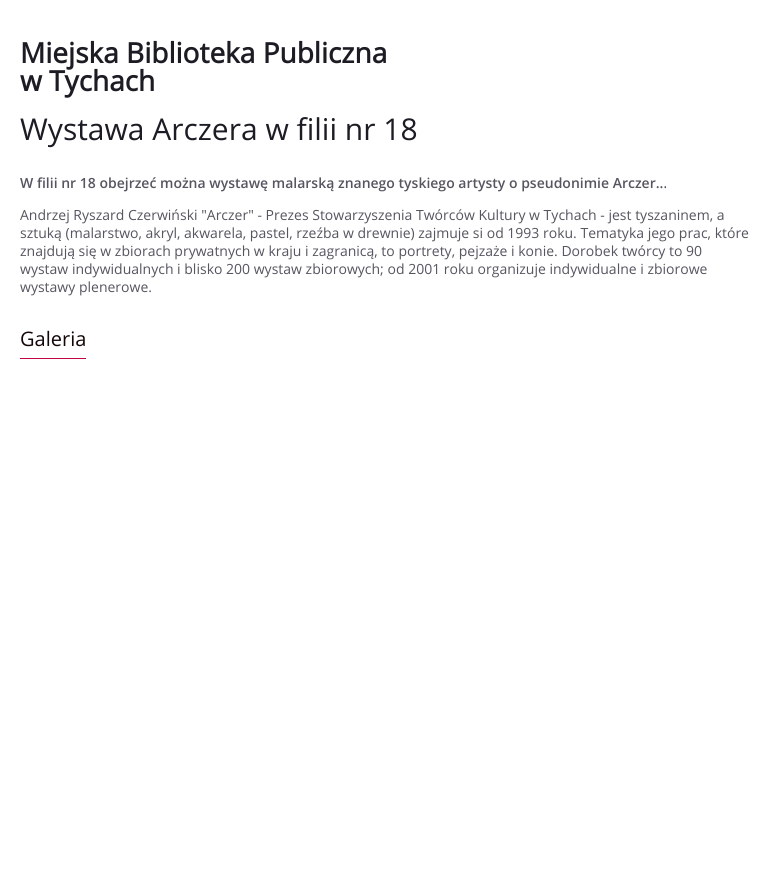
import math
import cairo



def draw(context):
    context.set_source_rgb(1, 1, 1)
    context.paint()
    context.set_source_rgb(190 / 255, 4 / 255, 66 / 255)
    context.rectangle(20, 358, 66, 1)
    context.fill()
    context.select_font_face("Open Sans", cairo.FontSlant.NORMAL, cairo.FontWeight.BOLD)
    context.set_font_size(28)
    context.set_source_rgb(29 / 255, 28 / 255, 36 / 255)
    context.move_to(20, 63)
    context.show_text("Miejska Biblioteka Publiczna")
    context.move_to(20, 91)
    context.show_text("w Tychach")
    context.select_font_face("Open Sans")
    context.set_font_size(30)
    context.move_to(20, 140)
    context.show_text("Wystawa Arczera w filii nr 18")
    context.select_font_face("Open Sans SemiBold")
    context.set_font_size(14)
    context.set_source_rgb(86 / 255, 85 / 255, 96 / 255)
    context.move_to(20, 188)
    context.show_text("W filii nr 18 obejrzeć można wystawę malarską znanego tyskiego artysty o pseudonimie Arczer...")
    context.select_font_face("Open Sans")
    context.move_to(20, 220)
    context.show_text("Andrzej Ryszard Czerwiński \"Arczer\" - Prezes Stowarzyszenia Twórców Kultury w Tychach - jest tyszaninem, a")
    context.move_to(20, 238)
    context.show_text("sztuką (malarstwo, akryl, akwarela, pastel, rzeźba w drewnie) zajmuje si od 1993 roku. Tematyka jego prac, które")
    context.move_to(20, 256)
    context.show_text("znajdują się w zbiorach prywatnych w kraju i zagranicą, to portrety, pejzaże i konie. Dorobek twórcy to 90")
    context.move_to(20, 274)
    context.show_text("wystaw indywidualnych i blisko 200 wystaw zbiorowych; od 2001 roku organizuje indywidualne i zbiorowe")
    context.move_to(20, 292)
    context.show_text("wystawy plenerowe.")
    context.set_font_size(20)
    context.set_source_rgb(20 / 255, 6 / 255, 6 / 255)
    context.move_to(20, 346)
    context.show_text("Galeria")


surface = cairo.ImageSurface(cairo.Format.RGB24, 772, 872)
context = cairo.Context(surface)
options = cairo.FontOptions()
options.set_hint_metrics(cairo.HintMetrics.OFF)
options.set_hint_style(cairo.HintStyle.NONE)
context.set_font_options(options)
context.set_miter_limit(4)
draw(context)
surface.write_to_png("out.png")
